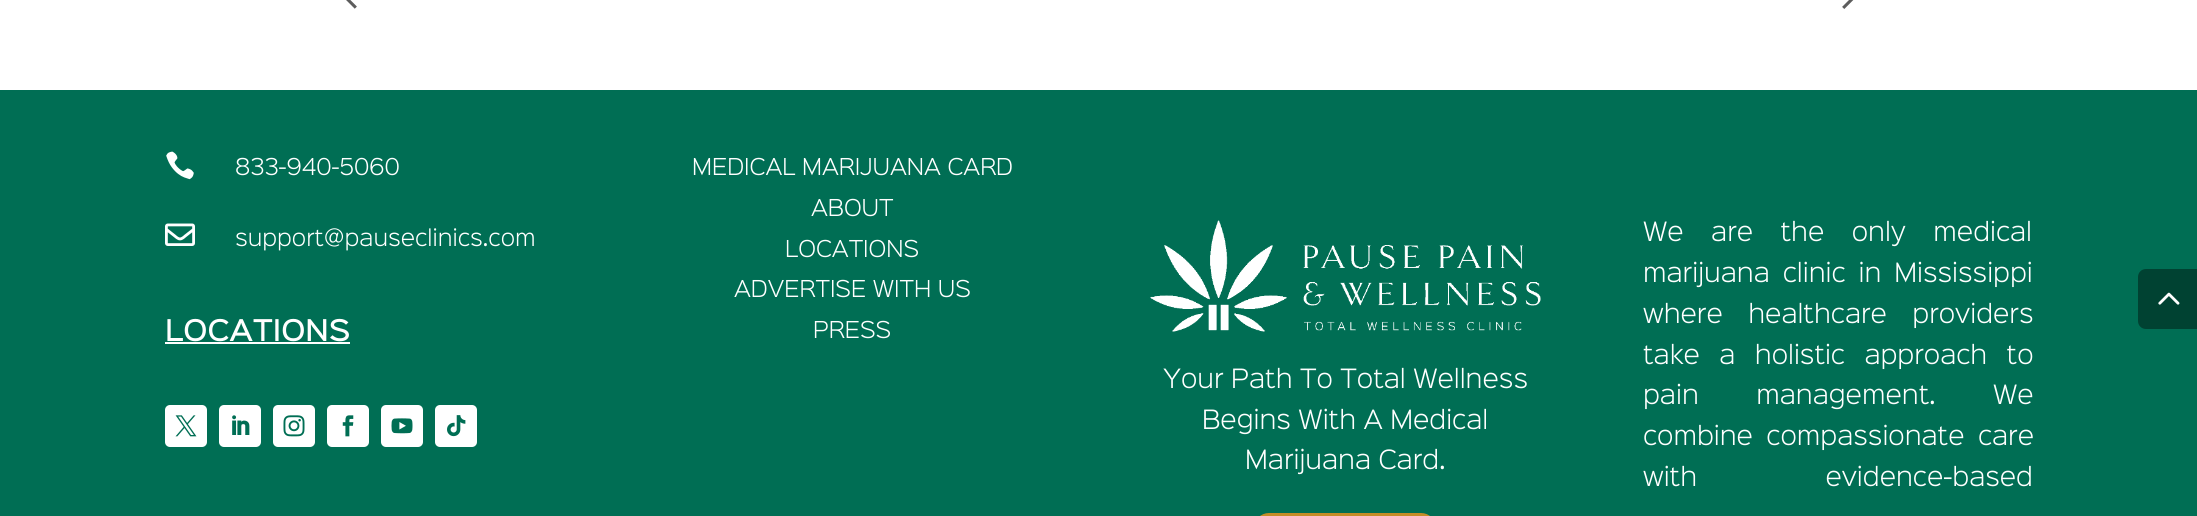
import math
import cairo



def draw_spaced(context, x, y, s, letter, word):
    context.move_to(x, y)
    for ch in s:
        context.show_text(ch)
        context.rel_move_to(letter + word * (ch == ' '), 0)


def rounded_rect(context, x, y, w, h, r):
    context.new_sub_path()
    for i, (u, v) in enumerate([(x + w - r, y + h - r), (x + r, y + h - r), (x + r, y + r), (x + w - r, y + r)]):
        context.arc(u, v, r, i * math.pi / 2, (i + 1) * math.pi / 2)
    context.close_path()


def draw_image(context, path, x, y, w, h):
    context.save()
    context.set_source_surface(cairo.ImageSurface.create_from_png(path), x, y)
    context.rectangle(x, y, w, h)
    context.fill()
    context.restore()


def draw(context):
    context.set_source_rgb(1, 1, 1)
    context.paint()
    draw_image(context, "images/1.png", 346, 0, 11, 9)
    draw_image(context, "images/2.png", 1842, 0, 12, 9)
    context.set_source_rgb(0, 110 / 255, 84 / 255)
    context.rectangle(0, 90, 2197, 426)
    context.fill()
    draw_image(context, "images/3.png", 166, 151, 28, 29)
    draw_image(context, "images/4.png", 165, 223, 30, 23)
    context.set_source_rgb(1, 1, 1)
    context.rectangle(165, 342, 185, 2)
    context.fill()
    rounded_rect(context, 165, 405, 42, 42, 5)
    context.fill()
    draw_image(context, "images/5.png", 175, 415, 22, 22)
    rounded_rect(context, 219, 405, 42, 42, 5)
    context.fill()
    draw_image(context, "images/6.png", 232, 415, 18, 20)
    rounded_rect(context, 273, 405, 42, 42, 5)
    context.fill()
    draw_image(context, "images/7.png", 283, 415, 22, 22)
    rounded_rect(context, 327, 405, 42, 42, 5)
    context.fill()
    draw_image(context, "images/8.png", 342, 415, 12, 22)
    rounded_rect(context, 381, 405, 42, 42, 5)
    context.fill()
    draw_image(context, "images/9.png", 391, 418, 22, 16)
    rounded_rect(context, 435, 405, 42, 42, 5)
    context.fill()
    draw_image(context, "images/10.png", 447, 415, 19, 22)
    draw_image(context, "images/11.png", 1150, 220, 391, 112)
    rounded_rect(context, 1255.5, 514.5, 179, 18, 13.5)
    context.set_source_rgb(196 / 255, 141 / 255, 39 / 255)
    context.set_line_width(3)
    context.stroke()
    context.set_source_rgb(0, 66 / 255, 50 / 255)
    context.new_path()
    context.move_to(2146, 269)
    context.line_to(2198, 269)
    context.line_to(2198, 329)
    context.line_to(2146, 329)
    context.curve_to(2141.5, 329, 2138, 325.5, 2138, 321)
    context.line_to(2138, 277)
    context.curve_to(2138, 272.5, 2141.5, 269, 2146, 269)
    context.close_path()
    context.fill()
    draw_image(context, "images/12.png", 2158, 292, 22, 13)
    context.select_font_face("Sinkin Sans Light")
    context.set_font_size(21)
    context.set_source_rgb(1, 1, 1)
    context.move_to(235, 175)
    context.show_text("833-940-5060")
    context.move_to(235, 246)
    context.show_text("support@pauseclinics.com")
    context.select_font_face("Sinkin Sans Medium")
    context.set_font_size(27)
    context.move_to(165, 341)
    context.show_text("LOCATIONS")
    context.select_font_face("Sinkin Sans Light")
    context.set_font_size(21)
    context.move_to(692, 175)
    context.show_text("MEDICAL MARIJUANA CARD")
    context.move_to(811, 216)
    context.show_text("ABOUT")
    context.move_to(785, 257)
    context.show_text("LOCATIONS")
    context.move_to(734, 297)
    context.show_text("ADVERTISE WITH US")
    context.move_to(813, 338)
    context.show_text("PRESS")
    context.set_font_size(24)
    context.move_to(1163, 388)
    context.show_text("Your Path To Total Wellness")
    context.move_to(1202, 429)
    context.show_text("Begins With A Medical")
    context.move_to(1245, 469)
    context.show_text("Marijuana Card.")
    draw_spaced(context, 1643, 241, "We are the only medical", 0, 20)
    draw_spaced(context, 1643, 282, "marijuana clinic in Mississippi", 0, 5.5)
    draw_spaced(context, 1643, 323, "where healthcare providers", 0, 18)
    draw_spaced(context, 1643, 364, "take a holistic approach to", 0, 12)
    draw_spaced(context, 1643, 404, "pain management. We", 0, 50)
    draw_spaced(context, 1643, 445, "combine compassionate care", 0, 6)
    draw_spaced(context, 1643, 486, "with evidence-based", 0, 121)


surface = cairo.ImageSurface(cairo.Format.RGB24, 2197, 516)
context = cairo.Context(surface)
options = cairo.FontOptions()
options.set_hint_metrics(cairo.HintMetrics.OFF)
options.set_hint_style(cairo.HintStyle.NONE)
context.set_font_options(options)
context.set_miter_limit(4)
draw(context)
surface.write_to_png("out.png")
